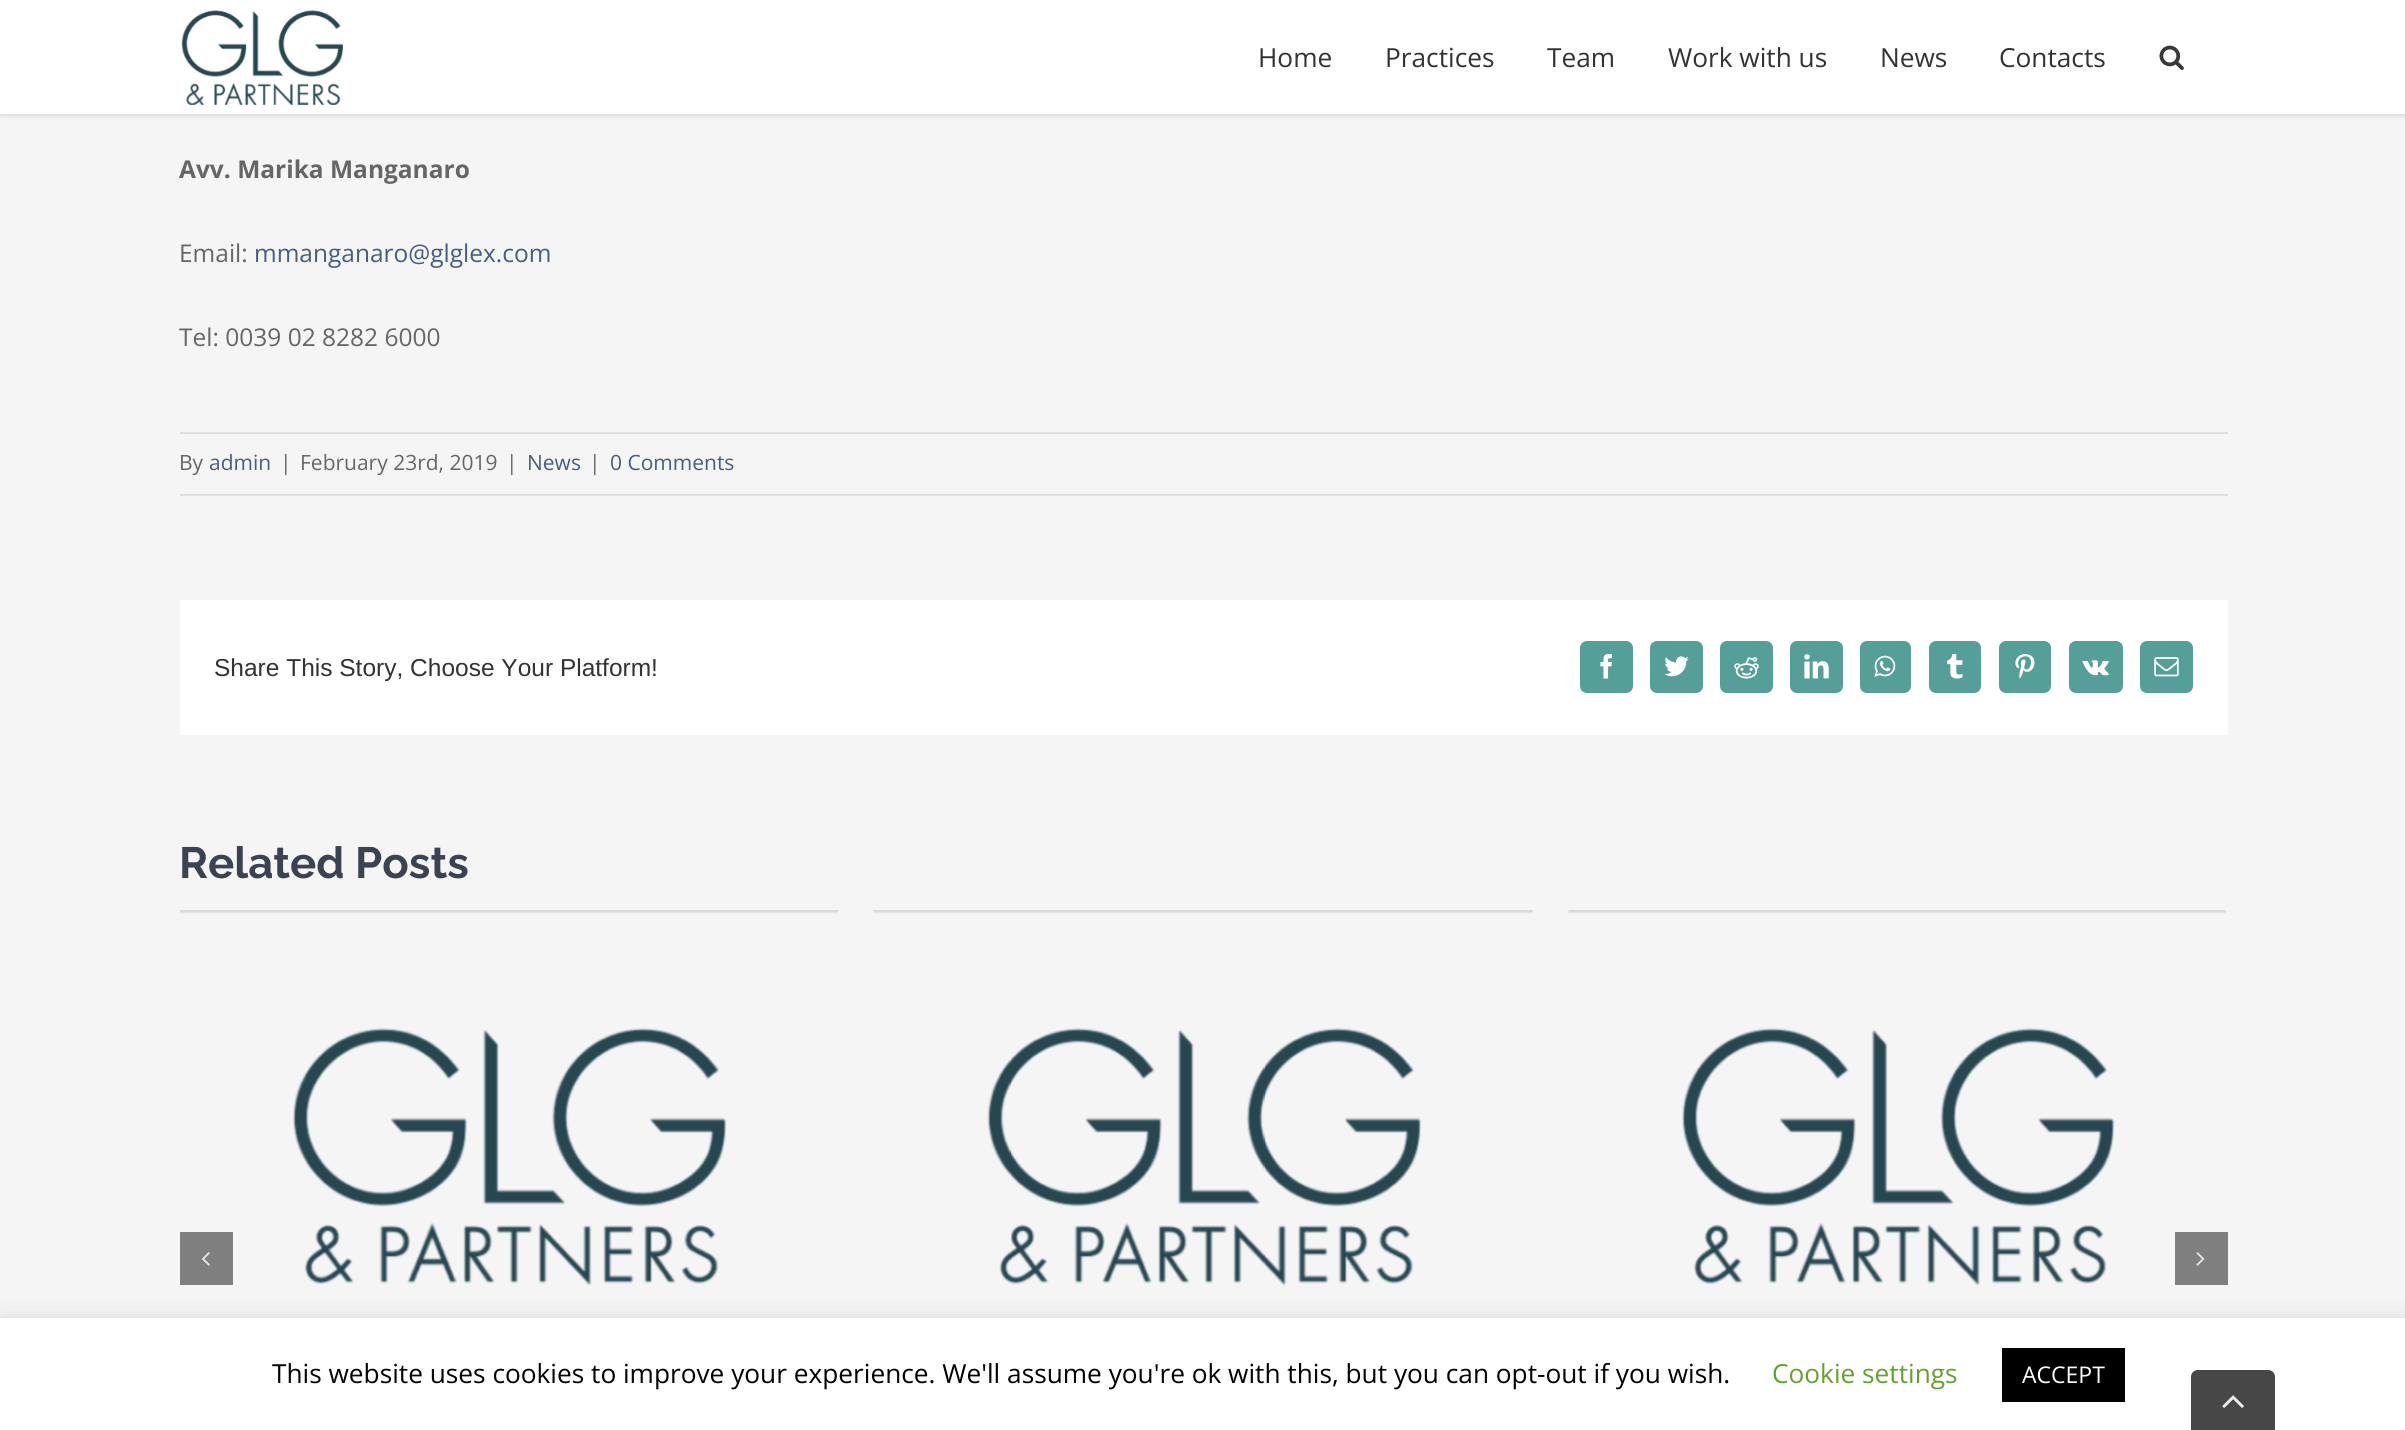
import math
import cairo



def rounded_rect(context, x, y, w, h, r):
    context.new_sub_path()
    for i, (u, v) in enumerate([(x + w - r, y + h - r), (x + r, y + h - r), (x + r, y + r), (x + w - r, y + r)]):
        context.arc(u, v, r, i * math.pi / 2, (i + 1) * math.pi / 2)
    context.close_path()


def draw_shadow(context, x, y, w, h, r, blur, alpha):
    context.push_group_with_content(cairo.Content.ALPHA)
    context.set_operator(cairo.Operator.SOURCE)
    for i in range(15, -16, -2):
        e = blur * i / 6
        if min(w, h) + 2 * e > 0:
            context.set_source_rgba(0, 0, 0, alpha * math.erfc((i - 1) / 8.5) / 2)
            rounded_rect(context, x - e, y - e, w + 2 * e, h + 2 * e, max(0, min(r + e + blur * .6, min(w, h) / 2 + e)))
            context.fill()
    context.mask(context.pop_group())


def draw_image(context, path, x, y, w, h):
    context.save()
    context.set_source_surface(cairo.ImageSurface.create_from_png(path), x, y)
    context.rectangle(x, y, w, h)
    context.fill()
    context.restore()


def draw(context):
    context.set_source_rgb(245 / 255, 245 / 255, 245 / 255)
    context.paint()
    context.set_source_rgb(0, 0, 0)
    draw_shadow(context, 0, 2, 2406, 114, 0, 2.5, 0.12)
    context.set_source_rgb(1, 1, 1)
    context.rectangle(0, 0, 2405, 114)
    context.fill()
    draw_image(context, "images/1.png", 181, 10, 162, 95)
    draw_image(context, "images/2.png", 2159, 45, 25, 25)
    context.set_source_rgb(224 / 255, 222 / 255, 222 / 255)
    context.rectangle(180, 432, 2048, 2)
    context.fill()
    context.rectangle(180, 494, 2048, 2)
    context.fill()
    context.set_source_rgb(1, 1, 1)
    context.rectangle(180, 600, 2048, 135)
    context.fill()
    context.set_source_rgb(84 / 255, 159 / 255, 151 / 255)
    rounded_rect(context, 1581, 642, 51, 50, 6)
    context.fill_preserve()
    context.stroke()
    draw_image(context, "images/3.png", 1600, 654, 12, 25)
    rounded_rect(context, 1651, 642, 51, 50, 6)
    context.fill_preserve()
    context.stroke()
    draw_image(context, "images/4.png", 1664, 656, 25, 21)
    rounded_rect(context, 1721, 642, 51, 50, 6)
    context.fill_preserve()
    context.stroke()
    draw_image(context, "images/5.png", 1734, 657, 25, 22)
    rounded_rect(context, 1791, 642, 51, 50, 6)
    context.fill_preserve()
    context.stroke()
    draw_image(context, "images/6.png", 1804, 654, 25, 25)
    rounded_rect(context, 1861, 642, 49, 50, 6)
    context.fill_preserve()
    context.stroke()
    draw_image(context, "images/7.png", 1874, 655, 22, 22)
    rounded_rect(context, 1930, 642, 50, 50, 6)
    context.fill_preserve()
    context.stroke()
    draw_image(context, "images/8.png", 1947, 654, 16, 25)
    rounded_rect(context, 2000, 642, 50, 50, 6)
    context.fill_preserve()
    context.stroke()
    draw_image(context, "images/9.png", 2015, 654, 20, 25)
    rounded_rect(context, 2070, 642, 52, 50, 6)
    context.fill_preserve()
    context.stroke()
    draw_image(context, "images/10.png", 2082, 660, 27, 16)
    rounded_rect(context, 2141, 642, 51, 50, 6)
    context.fill_preserve()
    context.stroke()
    draw_image(context, "images/11.png", 2154, 657, 25, 20)
    draw_image(context, "images/12.png", 180, 910, 659, 376)
    draw_image(context, "images/13.png", 873, 910, 660, 376)
    draw_image(context, "images/14.png", 1568, 910, 658, 376)
    context.set_source_rgb(127 / 255, 127 / 255, 127 / 255)
    context.rectangle(180, 1232, 53, 53)
    context.fill()
    draw_image(context, "images/15.png", 202, 1252, 8, 14)
    context.rectangle(2175, 1232, 53, 53)
    context.fill()
    draw_image(context, "images/16.png", 2196, 1252, 9, 14)
    context.set_source_rgb(172 / 255, 171 / 255, 171 / 255)
    draw_shadow(context, 0, 1316, 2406, 114, 0, 9, 0.3)
    context.set_source_rgb(1, 1, 1)
    context.rectangle(0, 1318, 2405, 112)
    context.fill()
    context.set_source_rgb(0, 0, 0)
    context.rectangle(2002, 1348, 123, 54)
    context.fill()
    context.set_source_rgb(71 / 255, 71 / 255, 71 / 255)
    context.new_path()
    context.move_to(2198, 1370)
    context.line_to(2268, 1370)
    context.curve_to(2272, 1370, 2275, 1373, 2275, 1377)
    context.line_to(2275, 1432)
    context.line_to(2191, 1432)
    context.line_to(2191, 1377)
    context.curve_to(2191, 1373, 2194, 1370, 2198, 1370)
    context.close_path()
    context.fill()
    draw_image(context, "images/17.png", 2222, 1395, 22, 13)
    context.select_font_face("Open Sans")
    context.set_font_size(26.25)
    context.set_source_rgb(51 / 255, 51 / 255, 51 / 255)
    context.move_to(1258, 67)
    context.show_text("Home")
    context.move_to(1385, 67)
    context.show_text("Practices")
    context.move_to(1547, 67)
    context.show_text("Team")
    context.move_to(1668, 67)
    context.show_text("Work with us")
    context.move_to(1880, 67)
    context.show_text("News")
    context.move_to(1999, 67)
    context.show_text("Contacts")
    context.select_font_face("Open Sans", cairo.FontSlant.NORMAL, cairo.FontWeight.BOLD)
    context.set_font_size(24.5)
    context.set_source_rgb(102 / 255, 102 / 255, 102 / 255)
    context.move_to(179, 178)
    context.show_text("Avv. Marika Manganaro")
    context.select_font_face("Open Sans")
    context.move_to(179, 262)
    context.show_text("Email:")
    context.set_source_rgb(70 / 255, 94 / 255, 132 / 255)
    context.move_to(254, 262)
    context.show_text("mmanganaro@glglex.com")
    context.set_source_rgb(102 / 255, 102 / 255, 102 / 255)
    context.move_to(179, 346)
    context.show_text("Tel: 0039 02 8282 6000")
    context.set_font_size(21)
    context.move_to(179, 470)
    context.show_text("By")
    context.set_source_rgb(70 / 255, 94 / 255, 132 / 255)
    context.move_to(209, 470)
    context.show_text("admin")
    context.set_source_rgb(102 / 255, 102 / 255, 102 / 255)
    context.move_to(280, 470)
    context.show_text("|")
    context.move_to(300, 470)
    context.show_text("February 23rd, 2019")
    context.move_to(506, 470)
    context.show_text("|")
    context.set_source_rgb(70 / 255, 94 / 255, 132 / 255)
    context.move_to(527, 470)
    context.show_text("News")
    context.set_source_rgb(102 / 255, 102 / 255, 102 / 255)
    context.move_to(589, 470)
    context.show_text("|")
    context.set_source_rgb(70 / 255, 94 / 255, 132 / 255)
    context.move_to(610, 470)
    context.show_text("0 Comments")
    context.select_font_face("Liberation Sans")
    context.set_font_size(24.5)
    context.set_source_rgb(51 / 255, 51 / 255, 51 / 255)
    context.move_to(214, 676)
    context.show_text("Share This Story, Choose Your Platform!")
    context.select_font_face("Raleway Thin")
    context.set_font_size(43.75)
    context.set_source_rgb(59 / 255, 66 / 255, 81 / 255)
    context.move_to(179, 878)
    context.show_text("Related Posts")
    context.select_font_face("Open Sans")
    context.set_font_size(26.25)
    context.set_source_rgb(0, 0, 0)
    context.move_to(272, 1383)
    context.show_text("This website uses cookies to improve your experience. We'll assume you're ok with this, but you can opt-out if you wish.")
    context.set_source_rgb(98 / 255, 163 / 255, 41 / 255)
    context.move_to(1772, 1383)
    context.show_text("Cookie settings")
    context.set_font_size(23)
    context.set_source_rgb(1, 1, 1)
    context.move_to(2022, 1383)
    context.show_text("ACCEPT")


surface = cairo.ImageSurface(cairo.Format.RGB24, 2405, 1430)
context = cairo.Context(surface)
options = cairo.FontOptions()
options.set_hint_metrics(cairo.HintMetrics.OFF)
options.set_hint_style(cairo.HintStyle.NONE)
context.set_font_options(options)
context.set_miter_limit(4)
draw(context)
surface.write_to_png("out.png")
